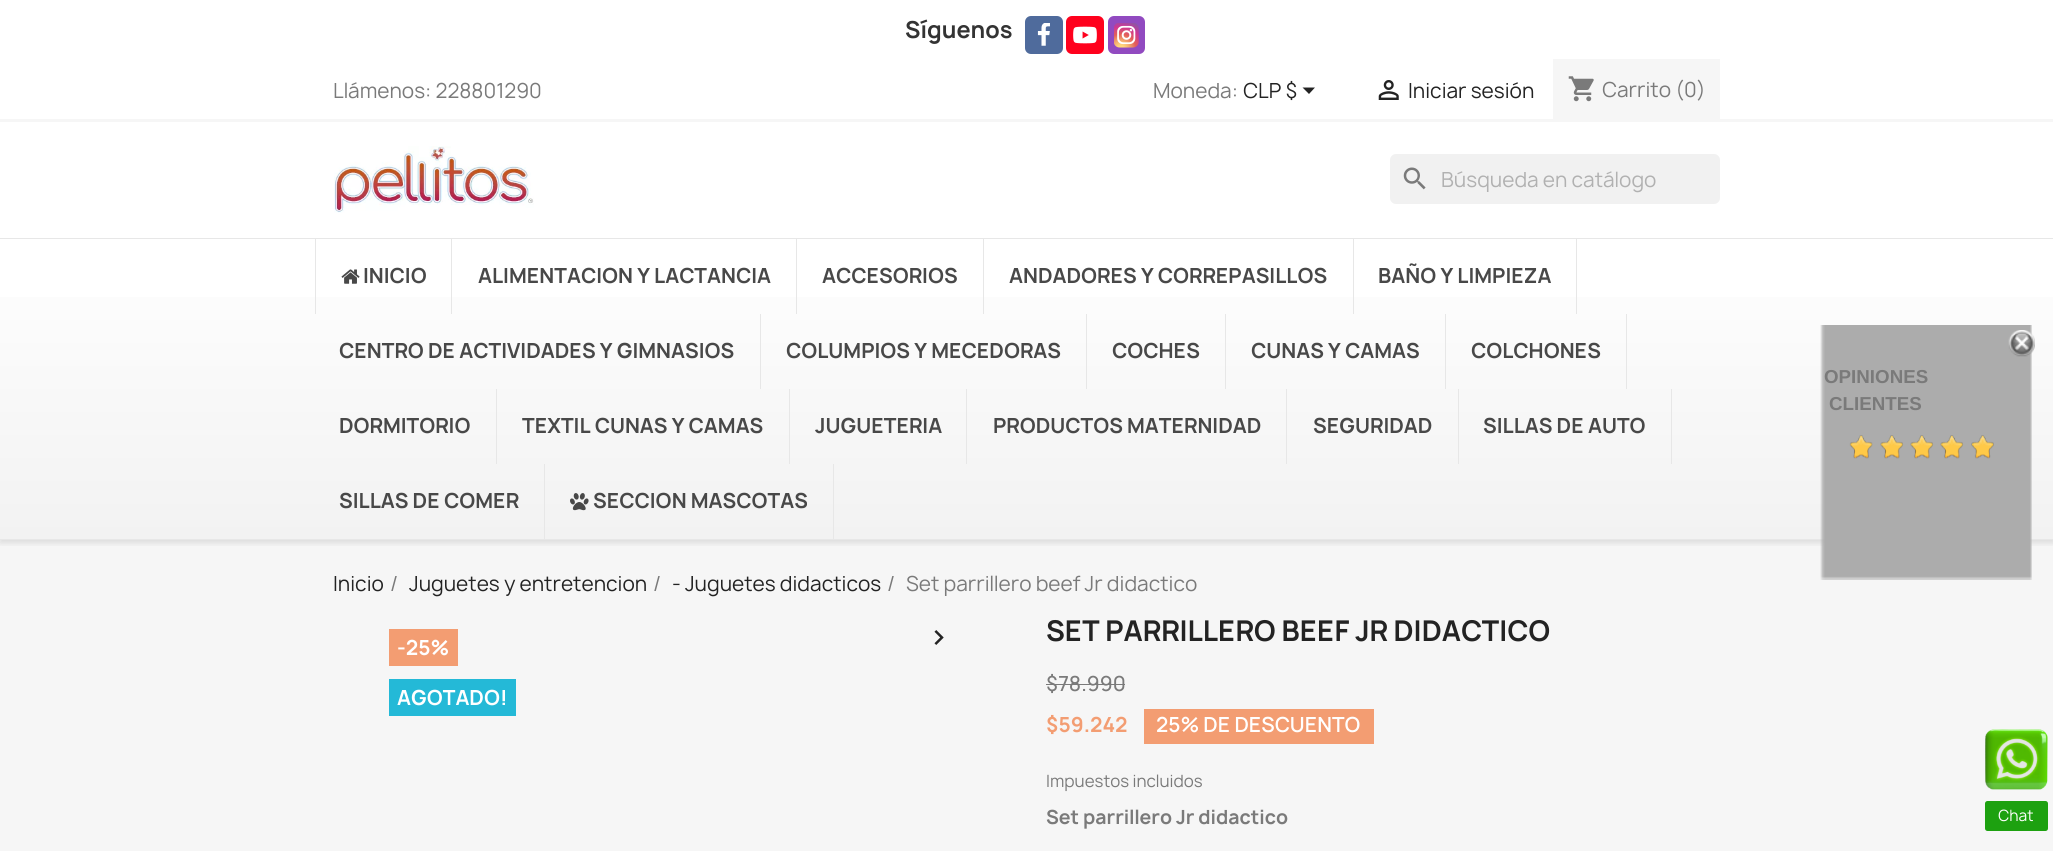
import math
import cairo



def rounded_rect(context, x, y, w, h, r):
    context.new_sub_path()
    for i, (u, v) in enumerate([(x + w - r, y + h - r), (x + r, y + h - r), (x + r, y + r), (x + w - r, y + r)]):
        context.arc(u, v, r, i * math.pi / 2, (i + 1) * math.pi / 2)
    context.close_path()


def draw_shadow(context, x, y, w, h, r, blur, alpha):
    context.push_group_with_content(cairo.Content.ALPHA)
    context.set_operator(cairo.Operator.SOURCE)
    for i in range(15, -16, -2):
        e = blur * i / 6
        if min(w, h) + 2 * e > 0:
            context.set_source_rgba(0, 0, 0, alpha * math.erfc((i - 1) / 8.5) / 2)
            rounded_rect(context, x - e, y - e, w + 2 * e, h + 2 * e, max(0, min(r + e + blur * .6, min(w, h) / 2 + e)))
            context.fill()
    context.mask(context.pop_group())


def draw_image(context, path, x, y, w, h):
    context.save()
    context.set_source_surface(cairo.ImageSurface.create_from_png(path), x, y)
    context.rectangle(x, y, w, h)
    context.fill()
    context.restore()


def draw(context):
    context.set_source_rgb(1, 1, 1)
    context.paint()
    context.set_source_rgb(79 / 255, 107 / 255, 156 / 255)
    rounded_rect(context, 1025, 16, 38, 38, 6)
    context.fill()
    draw_image(context, "images/1.png", 1037, 23, 13, 23)
    context.set_source_rgb(1, 1 / 255, 29 / 255)
    rounded_rect(context, 1066, 16, 38, 38, 6)
    context.fill()
    draw_image(context, "images/2.png", 1073, 26, 24, 18)
    context.set_source_rgb(145 / 255, 74 / 255, 192 / 255)
    rounded_rect(context, 1108, 16, 37, 38, 6)
    context.fill()
    draw_image(context, "images/3.png", 1114, 23, 25, 25)
    context.set_source_rgb(246 / 255, 246 / 255, 246 / 255)
    context.rectangle(0, 540, 2053, 311)
    context.fill()
    context.save()
    context.rectangle(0, 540, 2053, 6)
    context.clip()
    context.set_source_rgb(0, 0, 0)
    draw_shadow(context, 0, 61, 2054, 482, 0, 3, 0.11)
    context.restore()
    context.rectangle(0, 119, 2053, 3)
    context.fill()
    context.set_source_rgb(35 / 255, 35 / 255, 35 / 255)
    context.new_path()
    context.move_to(1302.5, 87.5)
    context.line_to(1315, 87.5)
    context.line_to(1309, 94)
    context.close_path()
    context.fill()
    draw_image(context, "images/4.png", 1378, 80, 21, 20)
    context.set_source_rgb(246 / 255, 246 / 255, 246 / 255)
    context.rectangle(1553, 59, 167, 60)
    context.fill()
    draw_image(context, "images/5.png", 1568, 76, 26, 26)
    draw_image(context, "images/6.png", 334, 146, 200, 67)
    context.set_source_rgb(241 / 255, 241 / 255, 241 / 255)
    rounded_rect(context, 1390, 154, 330, 50, 6)
    context.fill()
    draw_image(context, "images/7.png", 1403, 167, 23, 23)
    gradient = cairo.LinearGradient(1027, 239, 1027, 539)
    gradient.add_color_stop_rgba(0, 1, 1, 1, 1)
    gradient.add_color_stop_rgba(1, 242 / 255, 242 / 255, 242 / 255, 1)
    context.set_source(gradient)
    context.rectangle(0, 297, 2053, 242)
    context.fill()
    context.set_source_rgb(231 / 255, 231 / 255, 231 / 255)
    context.rectangle(0, 238, 2053, 1)
    context.fill()
    context.rectangle(0, 539, 2053, 1)
    context.fill()
    context.rectangle(451, 239, 1, 75)
    context.fill()
    context.rectangle(315, 239, 1, 75)
    context.fill()
    draw_image(context, "images/8.png", 341, 269, 19, 15)
    context.rectangle(796, 239, 1, 75)
    context.fill()
    context.rectangle(983, 239, 1, 75)
    context.fill()
    context.rectangle(1353, 239, 1, 75)
    context.fill()
    context.rectangle(1576, 239, 1, 75)
    context.fill()
    context.rectangle(760, 314, 1, 75)
    context.fill()
    context.rectangle(1086, 314, 1, 75)
    context.fill()
    context.rectangle(1225, 314, 1, 75)
    context.fill()
    context.rectangle(1445, 314, 1, 75)
    context.fill()
    context.rectangle(1626, 314, 1, 75)
    context.fill()
    context.rectangle(496, 389, 1, 75)
    context.fill()
    context.rectangle(789, 389, 1, 75)
    context.fill()
    context.rectangle(966, 389, 1, 75)
    context.fill()
    context.rectangle(1286, 389, 1, 75)
    context.fill()
    context.rectangle(1458, 389, 1, 75)
    context.fill()
    context.rectangle(1671, 389, 1, 75)
    context.fill()
    context.rectangle(544, 464, 1, 75)
    context.fill()
    context.rectangle(833, 464, 1, 75)
    context.fill()
    draw_image(context, "images/9.png", 570, 493, 19, 18)
    draw_image(context, "images/10.png", 934, 630, 10, 15)
    context.set_source_rgb(243 / 255, 157 / 255, 114 / 255)
    context.rectangle(389, 629, 69, 37)
    context.fill()
    context.set_source_rgb(36 / 255, 185 / 255, 215 / 255)
    context.rectangle(389, 679, 127, 37)
    context.fill()
    context.set_source_rgb(122 / 255, 122 / 255, 122 / 255)
    context.rectangle(1046, 684, 79, 1)
    context.fill()
    context.set_source_rgb(243 / 255, 157 / 255, 114 / 255)
    context.rectangle(1144, 709, 230, 35)
    context.fill()
    draw_image(context, "images/12.png", 1820, 325, 212, 255)
    draw_image(context, "images/11.png", 2008, 330, 27, 27)
    draw_image(context, "images/13.png", 1849, 435, 145, 24)
    draw_image(context, "images/14.png", 1985, 729, 63, 61)
    context.set_source_rgb(29 / 255, 161 / 255, 16 / 255)
    rounded_rect(context, 1985, 801, 63, 30, 2.5)
    context.fill()
    context.select_font_face("Manrope", cairo.FontSlant.NORMAL, cairo.FontWeight.BOLD)
    context.set_font_size(22.5)
    context.set_source_rgb(51 / 255, 51 / 255, 51 / 255)
    context.move_to(905, 38)
    context.show_text("Síguenos")
    context.select_font_face("Manrope")
    context.set_font_size(20)
    context.set_source_rgb(122 / 255, 122 / 255, 122 / 255)
    context.move_to(333, 98)
    context.show_text("Llámenos: 228801290")
    context.move_to(1153, 98)
    context.show_text("Moneda:")
    context.set_source_rgb(35 / 255, 35 / 255, 35 / 255)
    context.move_to(1243, 98)
    context.show_text("CLP $")
    context.move_to(1408, 98)
    context.show_text("Iniciar sesión")
    context.set_source_rgb(122 / 255, 122 / 255, 122 / 255)
    context.move_to(1602, 97)
    context.show_text("Carrito (0)")
    context.set_source_rgb(177 / 255, 177 / 255, 177 / 255)
    context.move_to(1441, 187)
    context.show_text("Búsqueda en catálogo")
    context.select_font_face("Manrope", cairo.FontSlant.NORMAL, cairo.FontWeight.BOLD)
    context.set_source_rgb(72 / 255, 72 / 255, 72 / 255)
    context.move_to(363, 283)
    context.show_text("INICIO")
    context.move_to(478, 283)
    context.show_text("ALIMENTACION Y LACTANCIA")
    context.move_to(822, 283)
    context.show_text("ACCESORIOS")
    context.move_to(1009, 283)
    context.show_text("ANDADORES Y CORREPASILLOS")
    context.move_to(1378, 283)
    context.show_text("BAÑO Y LIMPIEZA")
    context.move_to(339, 358)
    context.show_text("CENTRO DE ACTIVIDADES Y GIMNASIOS")
    context.move_to(786, 358)
    context.show_text("COLUMPIOS Y MECEDORAS")
    context.move_to(1112, 358)
    context.show_text("COCHES")
    context.move_to(1251, 358)
    context.show_text("CUNAS Y CAMAS")
    context.move_to(1471, 358)
    context.show_text("COLCHONES")
    context.move_to(339, 433)
    context.show_text("DORMITORIO")
    context.move_to(522, 433)
    context.show_text("TEXTIL CUNAS Y CAMAS")
    context.move_to(815, 433)
    context.show_text("JUGUETERIA")
    context.move_to(993, 433)
    context.show_text("PRODUCTOS MATERNIDAD")
    context.move_to(1313, 433)
    context.show_text("SEGURIDAD")
    context.move_to(1483, 433)
    context.show_text("SILLAS DE AUTO")
    context.move_to(339, 508)
    context.show_text("SILLAS DE COMER")
    context.move_to(593, 508)
    context.show_text("SECCION MASCOTAS")
    context.select_font_face("Manrope")
    context.set_source_rgb(35 / 255, 35 / 255, 35 / 255)
    context.move_to(333, 591)
    context.show_text("Inicio")
    context.set_source_rgb(122 / 255, 122 / 255, 122 / 255)
    context.move_to(390, 591)
    context.show_text("/")
    context.set_source_rgb(35 / 255, 35 / 255, 35 / 255)
    context.move_to(409, 591)
    context.show_text("Juguetes y entretencion")
    context.set_source_rgb(122 / 255, 122 / 255, 122 / 255)
    context.move_to(653, 591)
    context.show_text("/")
    context.set_source_rgb(35 / 255, 35 / 255, 35 / 255)
    context.move_to(672, 591)
    context.show_text("- Juguetes didacticos")
    context.set_source_rgb(122 / 255, 122 / 255, 122 / 255)
    context.move_to(887, 591)
    context.show_text("/")
    context.move_to(906, 591)
    context.show_text("Set parrillero beef Jr didactico")
    context.select_font_face("Manrope", cairo.FontSlant.NORMAL, cairo.FontWeight.BOLD)
    context.set_source_rgb(1, 1, 1)
    context.move_to(397, 655)
    context.show_text("-25%")
    context.move_to(397, 705)
    context.show_text("AGOTADO!")
    context.set_font_size(27.5)
    context.set_source_rgb(35 / 255, 35 / 255, 35 / 255)
    context.move_to(1046, 641)
    context.show_text("SET PARRILLERO BEEF JR DIDACTICO")
    context.select_font_face("Manrope Medium")
    context.set_font_size(20)
    context.set_source_rgb(122 / 255, 122 / 255, 122 / 255)
    context.move_to(1046, 691)
    context.show_text("$78.990")
    context.select_font_face("Manrope", cairo.FontSlant.NORMAL, cairo.FontWeight.BOLD)
    context.set_source_rgb(243 / 255, 157 / 255, 114 / 255)
    context.move_to(1046, 732)
    context.show_text("$59.242")
    context.select_font_face("Manrope SemiBold")
    context.set_source_rgb(1, 1, 1)
    context.move_to(1156, 732)
    context.show_text("25% DE DESCUENTO")
    context.select_font_face("Manrope")
    context.set_font_size(16.25)
    context.set_source_rgb(122 / 255, 122 / 255, 122 / 255)
    context.move_to(1046, 787)
    context.show_text("Impuestos incluidos")
    context.select_font_face("Manrope", cairo.FontSlant.NORMAL, cairo.FontWeight.BOLD)
    context.set_font_size(18.75)
    context.move_to(1046, 824)
    context.show_text("Set parrillero Jr didactico")
    context.select_font_face("Liberation Sans", cairo.FontSlant.NORMAL, cairo.FontWeight.BOLD)
    context.move_to(1824, 383)
    context.show_text("OPINIONES")
    context.move_to(1829, 410)
    context.show_text("CLIENTES")
    context.select_font_face("Manrope")
    context.set_font_size(15)
    context.set_source_rgb(1, 1, 1)
    context.move_to(1998, 821)
    context.show_text("Chat")


surface = cairo.ImageSurface(cairo.Format.RGB24, 2053, 851)
context = cairo.Context(surface)
options = cairo.FontOptions()
options.set_hint_metrics(cairo.HintMetrics.OFF)
options.set_hint_style(cairo.HintStyle.NONE)
context.set_font_options(options)
context.set_miter_limit(4)
draw(context)
surface.write_to_png("out.png")
